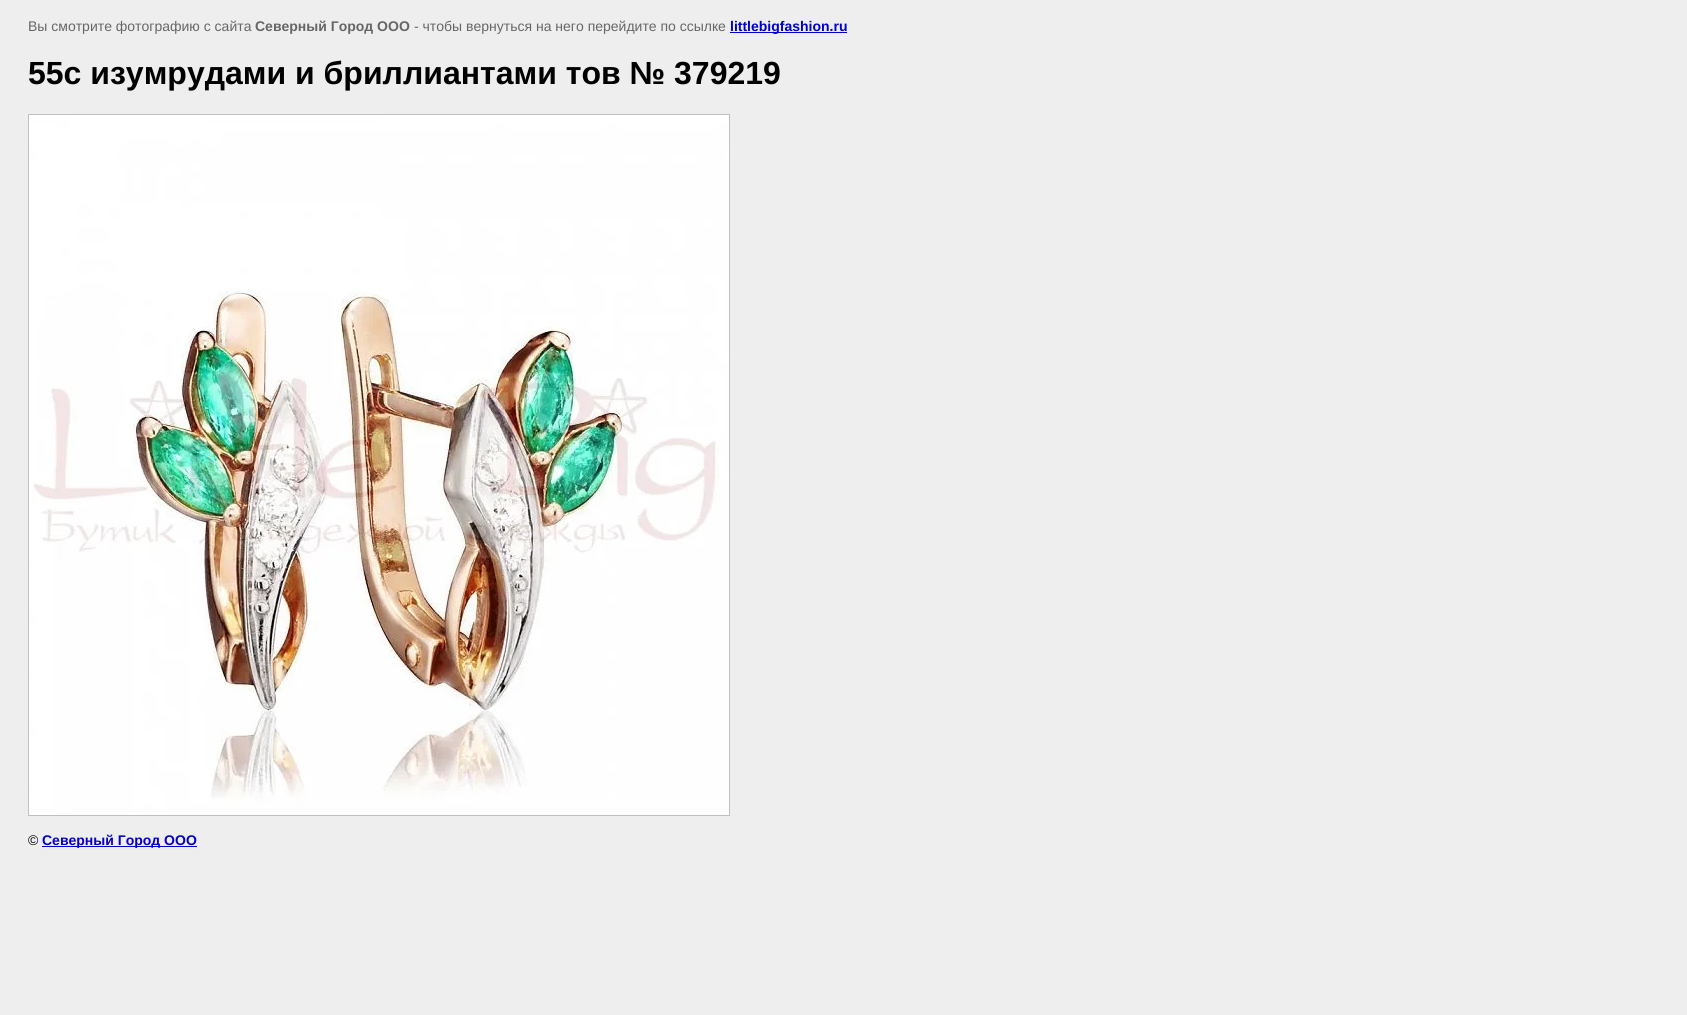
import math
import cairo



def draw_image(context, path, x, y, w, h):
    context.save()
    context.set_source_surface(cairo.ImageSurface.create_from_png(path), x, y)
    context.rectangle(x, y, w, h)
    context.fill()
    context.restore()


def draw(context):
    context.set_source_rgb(238 / 255, 238 / 255, 238 / 255)
    context.paint()
    context.set_source_rgb(0, 0, 204 / 255)
    context.rectangle(730, 32, 117, 1)
    context.fill()
    context.rectangle(28.5, 114.5, 701, 701)
    context.set_source_rgb(192 / 255, 192 / 255, 192 / 255)
    context.set_line_width(1)
    context.stroke()
    draw_image(context, "images/1.png", 29, 115, 700, 700)
    context.set_source_rgb(0, 0, 204 / 255)
    context.rectangle(42, 846, 155, 1)
    context.fill()
    context.select_font_face("Liberation Sans")
    context.set_font_size(14)
    context.set_source_rgb(102 / 255, 102 / 255, 102 / 255)
    context.move_to(28, 31)
    context.show_text("Вы смотрите фотографию с сайта")
    context.select_font_face("Liberation Sans", cairo.FontSlant.NORMAL, cairo.FontWeight.BOLD)
    context.move_to(255, 31)
    context.show_text("Северный Город ООО")
    context.select_font_face("Liberation Sans")
    context.move_to(414, 31)
    context.show_text("- чтобы вернуться на него перейдите по ссылке")
    context.select_font_face("Liberation Sans", cairo.FontSlant.NORMAL, cairo.FontWeight.BOLD)
    context.set_source_rgb(0, 0, 204 / 255)
    context.move_to(730, 31)
    context.show_text("littlebigfashion.ru")
    context.set_font_size(32)
    context.set_source_rgb(0, 0, 0)
    context.move_to(28, 84)
    context.show_text("55с изумрудами и бриллиантами тов № 379219")
    context.select_font_face("Liberation Sans")
    context.set_font_size(14)
    context.move_to(28, 845)
    context.show_text("©")
    context.select_font_face("Liberation Sans", cairo.FontSlant.NORMAL, cairo.FontWeight.BOLD)
    context.set_source_rgb(0, 0, 204 / 255)
    context.move_to(42, 845)
    context.show_text("Северный Город ООО")


surface = cairo.ImageSurface(cairo.Format.RGB24, 1687, 1015)
context = cairo.Context(surface)
options = cairo.FontOptions()
options.set_hint_metrics(cairo.HintMetrics.OFF)
options.set_hint_style(cairo.HintStyle.NONE)
context.set_font_options(options)
context.set_miter_limit(4)
draw(context)
surface.write_to_png("out.png")
